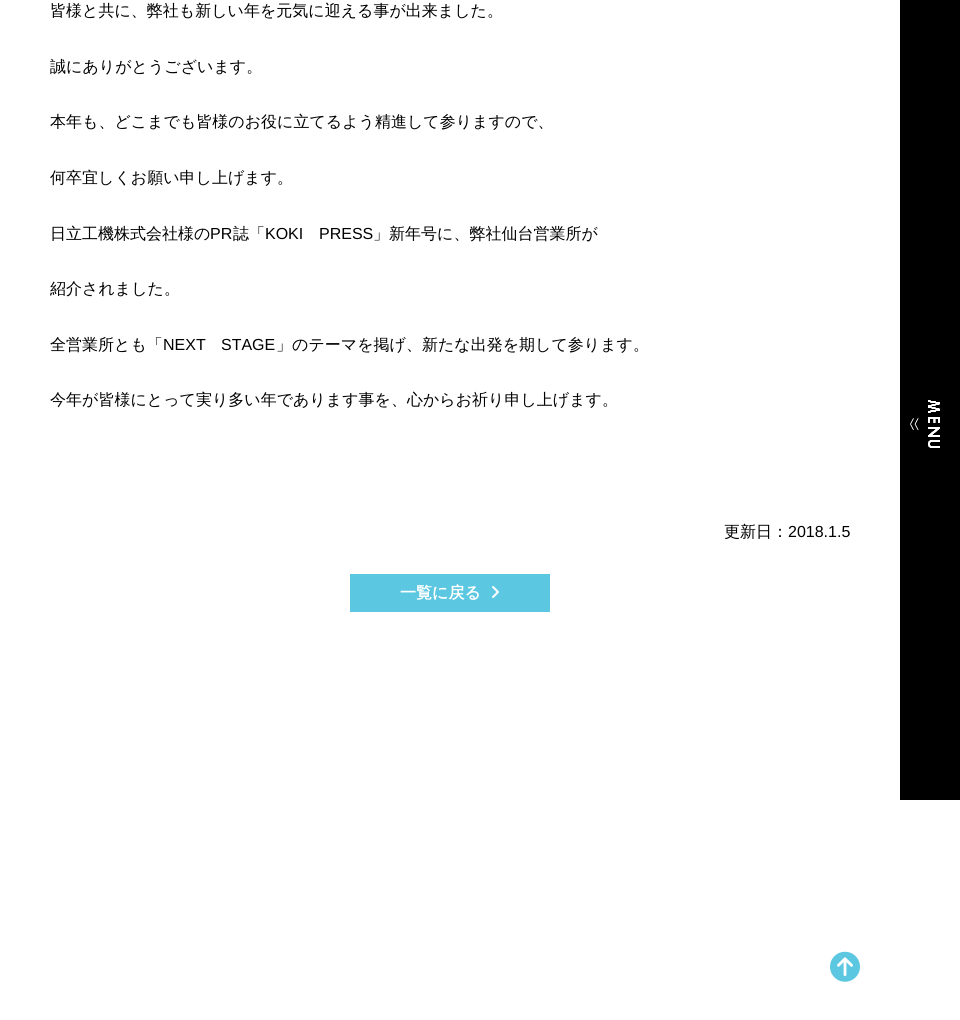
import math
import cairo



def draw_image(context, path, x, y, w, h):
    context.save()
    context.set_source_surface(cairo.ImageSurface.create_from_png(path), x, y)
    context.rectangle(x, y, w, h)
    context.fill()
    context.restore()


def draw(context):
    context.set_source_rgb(1, 1, 1)
    context.paint()
    context.set_source_rgb(92 / 255, 199 / 255, 224 / 255)
    context.rectangle(350, 574, 200, 38)
    context.fill()
    draw_image(context, "images/1.png", 492, 586, 7, 12)
    draw_image(context, "images/2.png", 830, 951, 30, 31)
    context.set_source_rgb(0, 0, 0)
    context.rectangle(900, 0, 60, 800)
    context.fill()
    draw_image(context, "images/3.png", 910, 400, 30, 48)
    context.select_font_face("WenQuanYi Zen Hei Medium")
    context.set_font_size(16)
    context.move_to(50, 16)
    context.show_text("皆様と共に、弊社も新しい年を元気に迎える事が出来ました。")
    context.move_to(50, 72)
    context.show_text("誠にありがとうございます。")
    context.move_to(50, 127)
    context.show_text("本年も、どこまでも皆様のお役に立てるよう精進して参りますので、")
    context.move_to(50, 183)
    context.show_text("何卒宜しくお願い申し上げます。")
    context.move_to(50, 239)
    context.show_text("日立工機株式会社様の")
    context.select_font_face("Liberation Sans")
    context.move_to(210, 239)
    context.show_text("PR")
    context.select_font_face("WenQuanYi Zen Hei Medium")
    context.move_to(233, 239)
    context.show_text("誌「")
    context.select_font_face("Liberation Sans")
    context.move_to(265, 239)
    context.show_text("KOKI")
    context.move_to(319, 239)
    context.show_text("PRESS")
    context.select_font_face("WenQuanYi Zen Hei Medium")
    context.move_to(373, 239)
    context.show_text("」新年号に、弊社仙台営業所が")
    context.move_to(50, 294)
    context.show_text("紹介されました。")
    context.move_to(50, 350)
    context.show_text("全営業所とも「")
    context.select_font_face("Liberation Sans")
    context.move_to(163, 350)
    context.show_text("NEXT")
    context.move_to(221, 350)
    context.show_text("STAGE")
    context.select_font_face("WenQuanYi Zen Hei Medium")
    context.move_to(276, 350)
    context.show_text("」のテーマを掲げ、新たな出発を期して参ります。")
    context.move_to(50, 405)
    context.show_text("今年が皆様にとって実り多い年であります事を、心からお祈り申し上げます。")
    context.move_to(724, 537)
    context.show_text("更新日：")
    context.select_font_face("Liberation Sans")
    context.move_to(788, 537)
    context.show_text("2018.1.5")
    context.select_font_face("WenQuanYi Zen Hei", cairo.FontSlant.NORMAL, cairo.FontWeight.BOLD)
    context.set_source_rgb(1, 1, 1)
    context.move_to(400, 598)
    context.show_text("一覧に戻る")


surface = cairo.ImageSurface(cairo.Format.RGB24, 960, 1020)
context = cairo.Context(surface)
options = cairo.FontOptions()
options.set_hint_metrics(cairo.HintMetrics.OFF)
options.set_hint_style(cairo.HintStyle.NONE)
context.set_font_options(options)
context.set_miter_limit(4)
draw(context)
surface.write_to_png("out.png")
